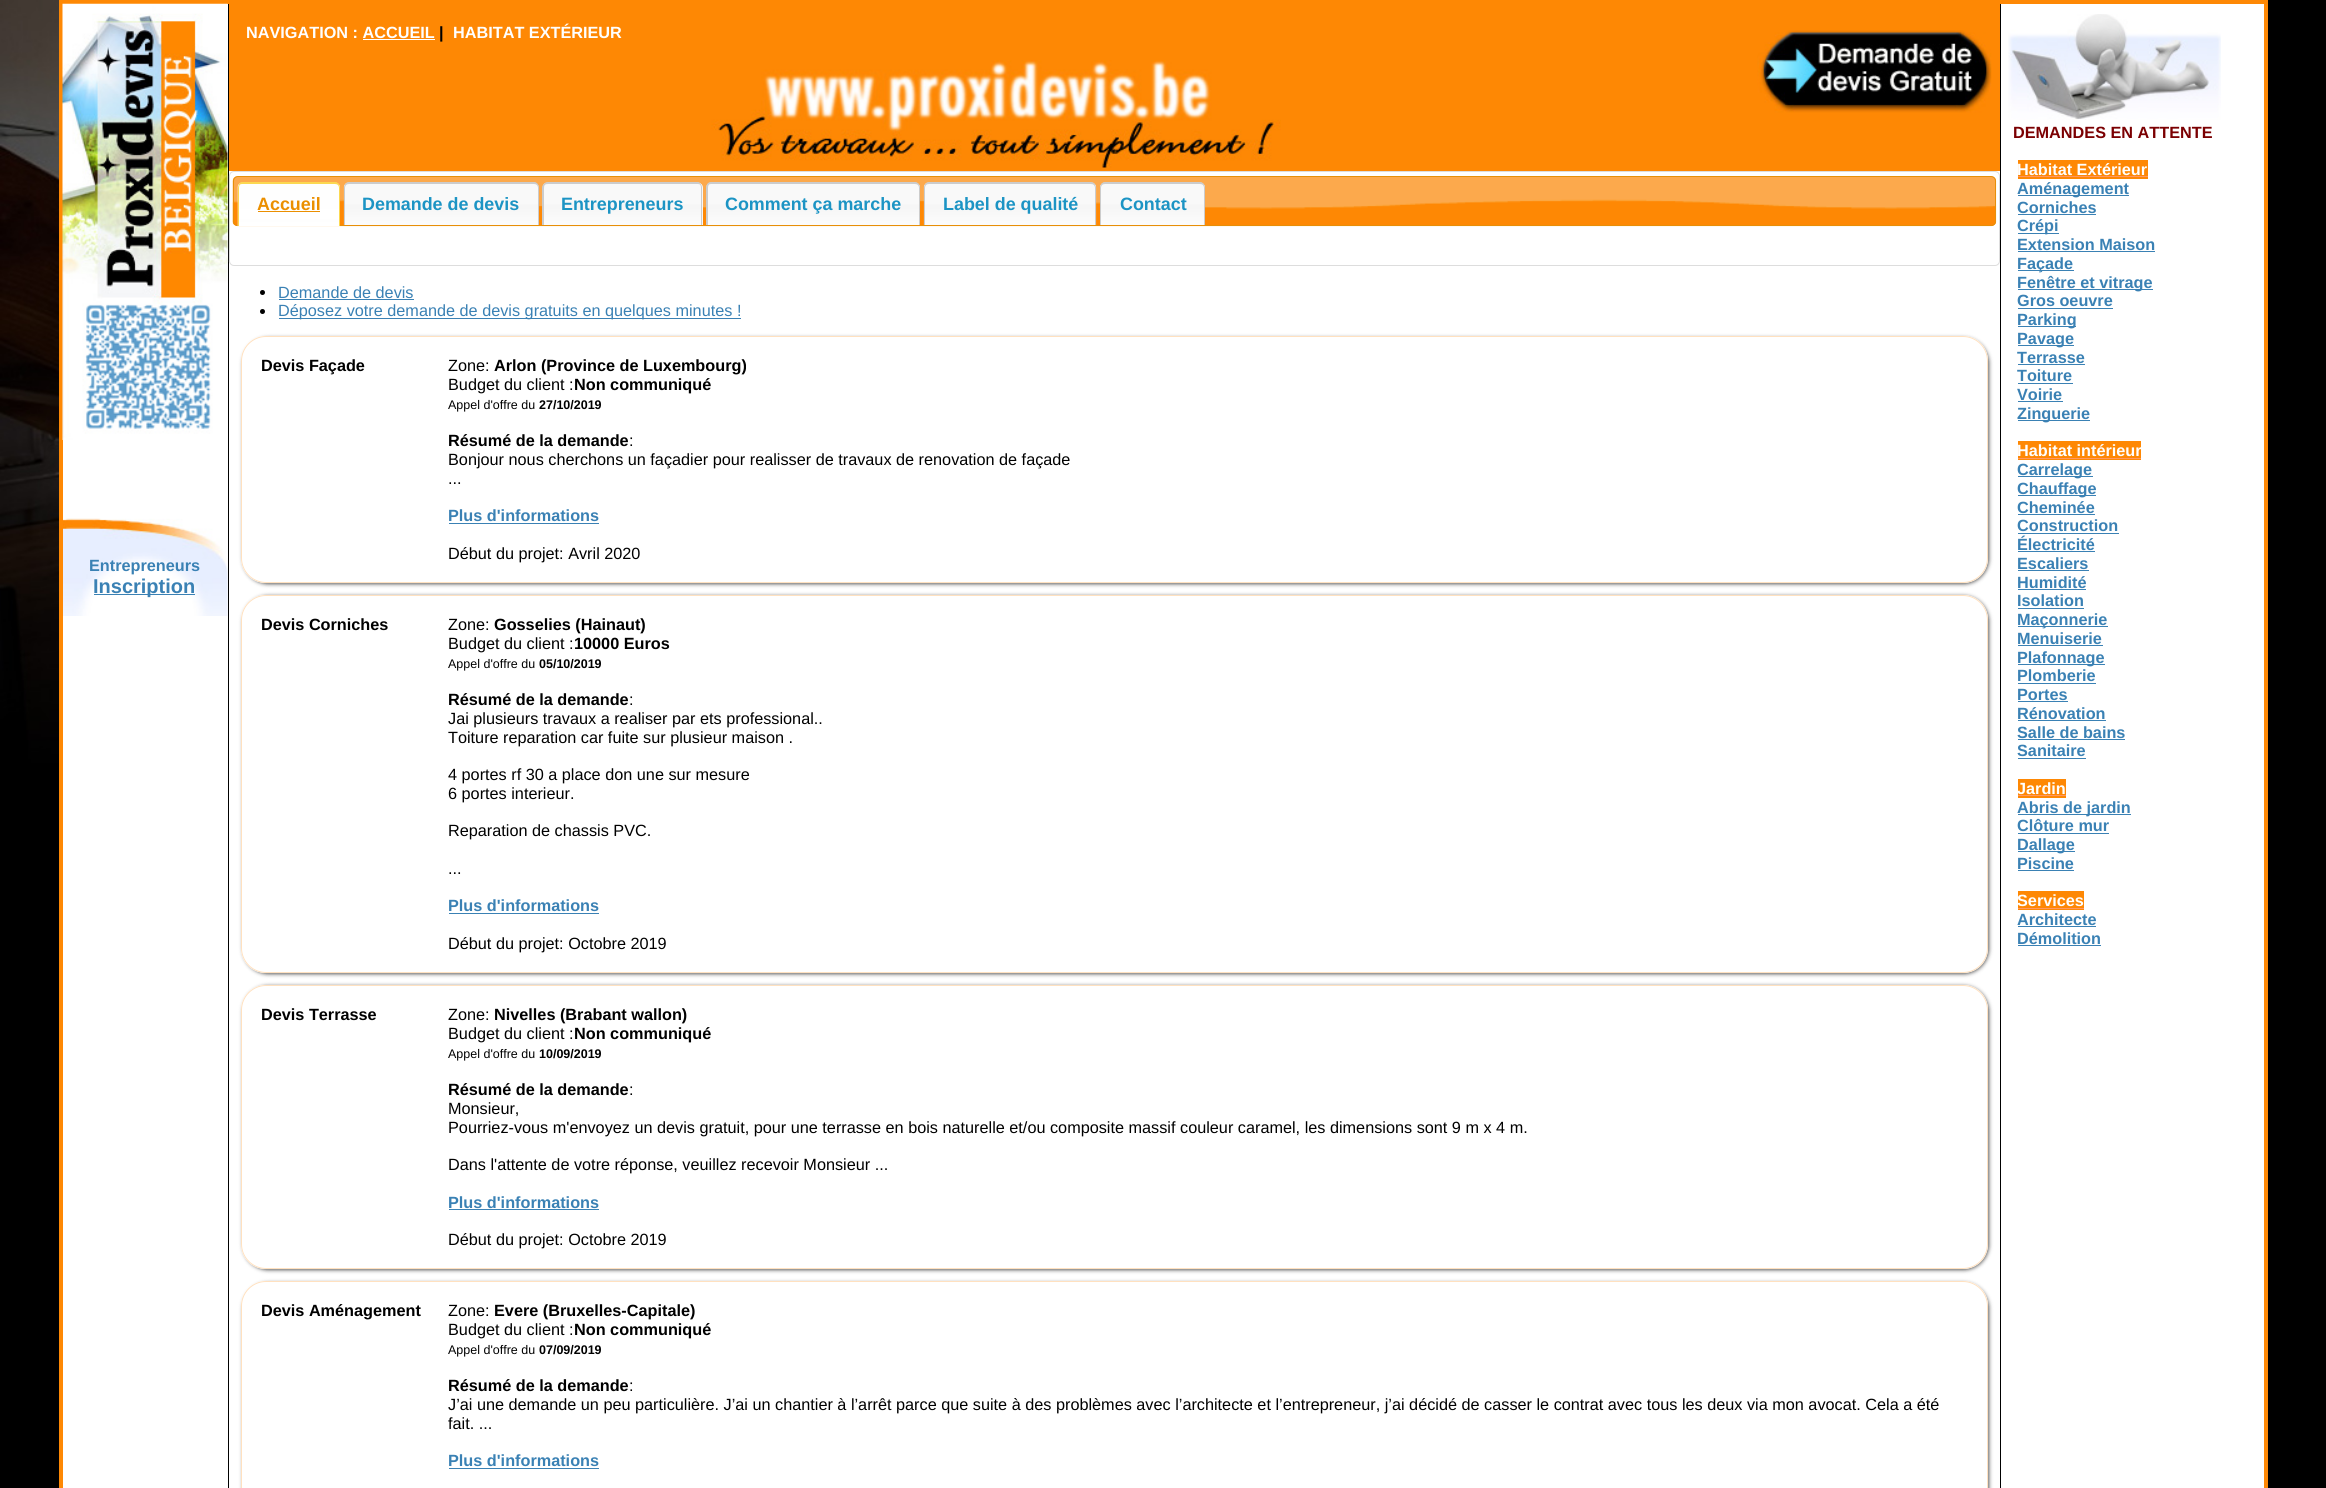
import math
import cairo



def rounded_rect(context, x, y, w, h, r):
    context.new_sub_path()
    for i, (u, v) in enumerate([(x + w - r, y + h - r), (x + r, y + h - r), (x + r, y + r), (x + w - r, y + r)]):
        context.arc(u, v, r, i * math.pi / 2, (i + 1) * math.pi / 2)
    context.close_path()


def draw_shadow(context, x, y, w, h, r, blur, alpha):
    context.push_group_with_content(cairo.Content.ALPHA)
    context.set_operator(cairo.Operator.SOURCE)
    for i in range(15, -16, -2):
        e = blur * i / 6
        if min(w, h) + 2 * e > 0:
            context.set_source_rgba(0, 0, 0, alpha * math.erfc((i - 1) / 8.5) / 2)
            rounded_rect(context, x - e, y - e, w + 2 * e, h + 2 * e, max(0, min(r + e + blur * .6, min(w, h) / 2 + e)))
            context.fill()
    context.mask(context.pop_group())


def draw_image(context, path, x, y, w, h):
    context.save()
    context.set_source_surface(cairo.ImageSurface.create_from_png(path), x, y)
    context.rectangle(x, y, w, h)
    context.fill()
    context.restore()


def draw(context):
    context.set_source_rgb(0, 0, 0)
    context.paint()
    draw_image(context, "images/1.png", 0, 0, 59, 763)
    context.set_source_rgb(1, 1, 1)
    context.rectangle(63, 4, 2201, 1484)
    context.fill()
    context.set_source_rgb(0, 0, 0)
    context.rectangle(2000, 1, 1, 1487)
    context.fill()
    context.rectangle(228, 1, 1, 1487)
    context.fill()
    context.set_source_rgb(254 / 255, 136 / 255, 4 / 255)
    context.rectangle(59, 0, 2209, 4)
    context.fill()
    context.rectangle(2264, 0, 4, 1488)
    context.fill()
    context.rectangle(59, 0, 4, 1488)
    context.fill()
    draw_image(context, "images/2.png", 62, 3, 166, 437)
    draw_image(context, "images/3.png", 63, 518, 165, 98)
    context.set_source_rgb(58 / 255, 129 / 255, 180 / 255)
    context.rectangle(94, 594, 101, 1)
    context.fill()
    context.set_source_rgb(254 / 255, 136 / 255, 4 / 255)
    context.rectangle(229, 4, 1771, 167)
    context.fill()
    draw_image(context, "images/4.png", 1757, 30, 235, 83)
    context.set_source_rgb(1, 1, 1)
    context.rectangle(363, 39, 72, 1)
    context.fill()
    draw_image(context, "images/5.png", 711, 60, 570, 108)
    draw_image(context, "images/6.png", 228, 175, 1, 87)
    rounded_rect(context, 229.5, 171.5, 1770, 94, 4.5)
    context.set_source_rgb(221 / 255, 221 / 255, 221 / 255)
    context.set_line_width(1)
    context.stroke()
    draw_image(context, "images/7.png", 232, 176, 1765, 51)
    rounded_rect(context, 233.5, 176.5, 1762, 49, 4.5)
    context.set_source_rgb(231 / 255, 143 / 255, 8 / 255)
    context.stroke()
    draw_image(context, "images/8.png", 237, 182, 103, 44)
    context.set_source_rgb(251 / 255, 216 / 255, 80 / 255)
    context.set_fill_rule(cairo.FillRule.EVEN_ODD)
    context.new_path()
    context.move_to(242, 182)
    context.line_to(335, 182)
    context.curve_to(338, 182, 340, 185, 340, 188)
    context.line_to(340, 226)
    context.line_to(238, 226)
    context.line_to(238, 188)
    context.curve_to(238, 185, 240, 182, 242, 182)
    context.close_path()
    context.move_to(242, 184)
    context.line_to(335, 184)
    context.curve_to(337, 184, 339, 185, 339, 188)
    context.line_to(339, 226)
    context.line_to(239, 226)
    context.line_to(239, 188)
    context.curve_to(239, 185, 240, 184, 242, 184)
    context.close_path()
    context.fill()
    context.set_source_rgb(235 / 255, 143 / 255, 0)
    context.rectangle(258, 211, 62, 1)
    context.fill()
    draw_image(context, "images/9.png", 343, 182, 196, 43)
    context.set_source_rgb(204 / 255, 204 / 255, 204 / 255)
    context.new_path()
    context.move_to(349, 182)
    context.line_to(534, 182)
    context.curve_to(537, 182, 539, 185, 539, 188)
    context.line_to(539, 225)
    context.line_to(344, 225)
    context.line_to(344, 188)
    context.curve_to(344, 185, 346, 182, 349, 182)
    context.close_path()
    context.move_to(349, 184)
    context.line_to(534, 184)
    context.curve_to(536, 184, 538, 185, 538, 188)
    context.line_to(538, 225)
    context.line_to(345, 225)
    context.line_to(345, 188)
    context.curve_to(345, 185, 347, 184, 349, 184)
    context.close_path()
    context.fill()
    context.set_source_rgb(246 / 255, 246 / 255, 246 / 255)
    context.new_path()
    context.move_to(548, 183)
    context.line_to(698, 183)
    context.curve_to(701, 183, 703, 185, 703, 188)
    context.line_to(703, 225)
    context.line_to(543, 225)
    context.line_to(543, 188)
    context.curve_to(543, 185, 545, 183, 548, 183)
    context.close_path()
    context.fill()
    draw_image(context, "images/10.png", 542, 182, 161, 43)
    context.set_source_rgb(204 / 255, 204 / 255, 204 / 255)
    context.new_path()
    context.move_to(548, 182)
    context.line_to(698, 182)
    context.curve_to(700, 182, 702, 185, 702, 188)
    context.line_to(702, 225)
    context.line_to(542, 225)
    context.line_to(542, 188)
    context.curve_to(542, 185, 545, 182, 548, 182)
    context.close_path()
    context.move_to(548, 184)
    context.line_to(698, 184)
    context.curve_to(700, 184, 701, 185, 701, 188)
    context.line_to(701, 225)
    context.line_to(544, 225)
    context.line_to(544, 188)
    context.curve_to(544, 185, 545, 184, 548, 184)
    context.close_path()
    context.fill()
    draw_image(context, "images/11.png", 706, 182, 214, 43)
    context.new_path()
    context.move_to(711, 182)
    context.line_to(915, 182)
    context.curve_to(918, 182, 920, 185, 920, 188)
    context.line_to(920, 225)
    context.line_to(706, 225)
    context.line_to(706, 188)
    context.curve_to(706, 185, 708, 182, 711, 182)
    context.close_path()
    context.move_to(711, 184)
    context.line_to(915, 184)
    context.curve_to(917, 184, 919, 185, 919, 188)
    context.line_to(919, 225)
    context.line_to(708, 225)
    context.line_to(708, 188)
    context.curve_to(708, 185, 709, 184, 711, 184)
    context.close_path()
    context.fill()
    draw_image(context, "images/12.png", 923, 182, 174, 43)
    context.new_path()
    context.move_to(929, 182)
    context.line_to(1091, 182)
    context.curve_to(1094, 182, 1096, 185, 1096, 188)
    context.line_to(1096, 225)
    context.line_to(924, 225)
    context.line_to(924, 188)
    context.curve_to(924, 185, 926, 182, 929, 182)
    context.close_path()
    context.move_to(929, 184)
    context.line_to(1091, 184)
    context.curve_to(1093, 184, 1095, 185, 1095, 188)
    context.line_to(1095, 225)
    context.line_to(925, 225)
    context.line_to(925, 188)
    context.curve_to(925, 185, 927, 184, 929, 184)
    context.close_path()
    context.fill()
    draw_image(context, "images/13.png", 1100, 182, 105, 43)
    context.new_path()
    context.move_to(1105, 182)
    context.line_to(1200, 182)
    context.curve_to(1203, 182, 1205, 185, 1205, 188)
    context.line_to(1205, 225)
    context.line_to(1100, 225)
    context.line_to(1100, 188)
    context.curve_to(1100, 185, 1102, 182, 1105, 182)
    context.close_path()
    context.move_to(1105, 184)
    context.line_to(1200, 184)
    context.curve_to(1202, 184, 1204, 185, 1204, 188)
    context.line_to(1204, 225)
    context.line_to(1101, 225)
    context.line_to(1101, 188)
    context.curve_to(1101, 185, 1103, 184, 1105, 184)
    context.close_path()
    context.fill()
    context.set_source_rgb(0, 0, 0)
    context.arc(262.5, 292.5, 2.5, 0, 2 * math.pi)
    context.fill()
    context.set_source_rgb(58 / 255, 129 / 255, 180 / 255)
    context.rectangle(279, 299, 135, 1)
    context.fill()
    context.set_source_rgb(0, 0, 0)
    context.arc(262.5, 311.5, 2.5, 0, 2 * math.pi)
    context.fill()
    context.set_source_rgb(58 / 255, 129 / 255, 180 / 255)
    context.rectangle(279, 318, 462, 1)
    context.fill()
    context.save()
    context.new_path()
    context.move_to(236, 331)
    context.line_to(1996, 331)
    context.line_to(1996, 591)
    context.line_to(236, 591)
    context.close_path()
    context.move_to(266, 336)
    context.line_to(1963, 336)
    context.curve_to(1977, 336, 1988, 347, 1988, 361)
    context.line_to(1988, 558)
    context.curve_to(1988, 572, 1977, 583, 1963, 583)
    context.line_to(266, 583)
    context.curve_to(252, 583, 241, 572, 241, 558)
    context.line_to(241, 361)
    context.curve_to(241, 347, 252, 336, 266, 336)
    context.close_path()
    context.clip()
    context.set_source_rgb(85 / 255, 85 / 255, 85 / 255)
    draw_shadow(context, 243, 338, 1746, 246, 25, 2, 1)
    context.restore()
    rounded_rect(context, 241.5, 336.5, 1746, 246, 24.5)
    context.set_source_rgb(1, 225 / 255, 192 / 255)
    context.stroke()
    context.set_source_rgb(58 / 255, 129 / 255, 180 / 255)
    context.rectangle(449, 523, 150, 1)
    context.fill()
    context.save()
    context.new_path()
    context.move_to(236, 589)
    context.line_to(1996, 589)
    context.line_to(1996, 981)
    context.line_to(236, 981)
    context.close_path()
    context.move_to(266, 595)
    context.line_to(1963, 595)
    context.curve_to(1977, 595, 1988, 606, 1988, 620)
    context.line_to(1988, 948)
    context.curve_to(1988, 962, 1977, 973, 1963, 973)
    context.line_to(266, 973)
    context.curve_to(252, 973, 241, 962, 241, 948)
    context.line_to(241, 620)
    context.curve_to(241, 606, 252, 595, 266, 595)
    context.close_path()
    context.clip()
    context.set_source_rgb(85 / 255, 85 / 255, 85 / 255)
    draw_shadow(context, 243, 596, 1746, 378, 25, 2, 1)
    context.restore()
    rounded_rect(context, 241.5, 595.5, 1746, 377, 24.5)
    context.set_source_rgb(1, 225 / 255, 192 / 255)
    context.stroke()
    context.set_source_rgb(58 / 255, 129 / 255, 180 / 255)
    context.rectangle(449, 913, 150, 1)
    context.fill()
    context.save()
    context.new_path()
    context.move_to(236, 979)
    context.line_to(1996, 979)
    context.line_to(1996, 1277)
    context.line_to(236, 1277)
    context.close_path()
    context.move_to(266, 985)
    context.line_to(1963, 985)
    context.curve_to(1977, 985, 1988, 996, 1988, 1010)
    context.line_to(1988, 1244)
    context.curve_to(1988, 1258, 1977, 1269, 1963, 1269)
    context.line_to(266, 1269)
    context.curve_to(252, 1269, 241, 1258, 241, 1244)
    context.line_to(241, 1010)
    context.curve_to(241, 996, 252, 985, 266, 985)
    context.close_path()
    context.clip()
    context.set_source_rgb(85 / 255, 85 / 255, 85 / 255)
    draw_shadow(context, 243, 986, 1746, 284, 25, 2, 1)
    context.restore()
    rounded_rect(context, 241.5, 985.5, 1746, 283, 24.5)
    context.set_source_rgb(1, 225 / 255, 192 / 255)
    context.stroke()
    context.set_source_rgb(58 / 255, 129 / 255, 180 / 255)
    context.rectangle(449, 1209, 150, 1)
    context.fill()
    context.save()
    context.new_path()
    context.move_to(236, 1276)
    context.line_to(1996, 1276)
    context.line_to(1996, 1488)
    context.line_to(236, 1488)
    context.close_path()
    context.move_to(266, 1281)
    context.line_to(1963, 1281)
    context.curve_to(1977, 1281, 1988, 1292, 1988, 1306)
    context.line_to(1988, 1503)
    context.curve_to(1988, 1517, 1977, 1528, 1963, 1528)
    context.line_to(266, 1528)
    context.curve_to(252, 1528, 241, 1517, 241, 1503)
    context.line_to(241, 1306)
    context.curve_to(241, 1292, 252, 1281, 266, 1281)
    context.close_path()
    context.clip()
    context.set_source_rgb(85 / 255, 85 / 255, 85 / 255)
    draw_shadow(context, 243, 1283, 1746, 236, 25, 2, 1)
    context.restore()
    rounded_rect(context, 241.5, 1281.5, 1746, 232, 24.5)
    context.set_source_rgb(1, 225 / 255, 192 / 255)
    context.stroke()
    context.set_source_rgb(58 / 255, 129 / 255, 180 / 255)
    context.rectangle(449, 1468, 150, 1)
    context.fill()
    draw_image(context, "images/14.png", 2008, 14, 213, 106)
    context.set_source_rgb(254 / 255, 136 / 255, 4 / 255)
    context.rectangle(2018, 160, 130, 19)
    context.fill()
    context.set_source_rgb(1, 150 / 255, 98 / 255)
    context.rectangle(2018, 176, 130, 1)
    context.fill()
    context.set_source_rgb(58 / 255, 129 / 255, 180 / 255)
    context.rectangle(2018, 195, 111, 1)
    context.fill()
    context.rectangle(2018, 214, 78, 1)
    context.fill()
    context.rectangle(2018, 233, 41, 1)
    context.fill()
    context.rectangle(2018, 251, 137, 1)
    context.fill()
    context.rectangle(2018, 270, 56, 1)
    context.fill()
    context.rectangle(2018, 289, 135, 1)
    context.fill()
    context.rectangle(2018, 308, 95, 1)
    context.fill()
    context.rectangle(2018, 326, 58, 1)
    context.fill()
    context.rectangle(2018, 345, 56, 1)
    context.fill()
    context.rectangle(2018, 364, 67, 1)
    context.fill()
    context.rectangle(2018, 383, 55, 1)
    context.fill()
    context.rectangle(2018, 401, 45, 1)
    context.fill()
    context.rectangle(2018, 420, 72, 1)
    context.fill()
    context.set_source_rgb(254 / 255, 136 / 255, 4 / 255)
    context.rectangle(2018, 441, 123, 19)
    context.fill()
    context.set_source_rgb(1, 150 / 255, 98 / 255)
    context.rectangle(2018, 458, 123, 1)
    context.fill()
    context.set_source_rgb(58 / 255, 129 / 255, 180 / 255)
    context.rectangle(2018, 476, 75, 1)
    context.fill()
    context.rectangle(2018, 495, 78, 1)
    context.fill()
    context.rectangle(2018, 514, 77, 1)
    context.fill()
    context.rectangle(2018, 533, 101, 1)
    context.fill()
    context.rectangle(2018, 551, 77, 1)
    context.fill()
    context.rectangle(2018, 570, 71, 1)
    context.fill()
    context.rectangle(2018, 589, 68, 1)
    context.fill()
    context.rectangle(2018, 608, 66, 1)
    context.fill()
    context.rectangle(2018, 626, 90, 1)
    context.fill()
    context.rectangle(2018, 645, 85, 1)
    context.fill()
    context.rectangle(2018, 664, 87, 1)
    context.fill()
    context.rectangle(2018, 683, 78, 1)
    context.fill()
    context.rectangle(2018, 701, 50, 1)
    context.fill()
    context.rectangle(2018, 720, 88, 1)
    context.fill()
    context.rectangle(2018, 739, 107, 1)
    context.fill()
    context.rectangle(2018, 758, 68, 1)
    context.fill()
    context.set_source_rgb(254 / 255, 136 / 255, 4 / 255)
    context.rectangle(2018, 779, 48, 19)
    context.fill()
    context.set_source_rgb(1, 150 / 255, 98 / 255)
    context.rectangle(2018, 795, 48, 1)
    context.fill()
    context.set_source_rgb(58 / 255, 129 / 255, 180 / 255)
    context.rectangle(2018, 814, 113, 1)
    context.fill()
    context.rectangle(2018, 833, 91, 1)
    context.fill()
    context.rectangle(2018, 851, 57, 1)
    context.fill()
    context.rectangle(2018, 870, 56, 1)
    context.fill()
    context.set_source_rgb(254 / 255, 136 / 255, 4 / 255)
    context.rectangle(2018, 891, 66, 19)
    context.fill()
    context.set_source_rgb(1, 150 / 255, 98 / 255)
    context.rectangle(2018, 908, 66, 1)
    context.fill()
    context.set_source_rgb(58 / 255, 129 / 255, 180 / 255)
    context.rectangle(2018, 926, 78, 1)
    context.fill()
    context.rectangle(2018, 945, 83, 1)
    context.fill()
    context.select_font_face("Liberation Sans", cairo.FontSlant.NORMAL, cairo.FontWeight.BOLD)
    context.set_font_size(16.25)
    context.move_to(89, 571)
    context.show_text("Entrepreneurs")
    context.set_font_size(20)
    context.move_to(93, 593)
    context.show_text("Inscription")
    context.set_font_size(16.25)
    context.set_source_rgb(1, 1, 1)
    context.move_to(246, 38)
    context.show_text("NAVIGATION : ACCUEIL")
    context.set_source_rgb(0, 0, 0)
    context.move_to(439, 38)
    context.show_text("|")
    context.set_source_rgb(1, 1, 1)
    context.move_to(453, 38)
    context.show_text("HABITAT EXTÉRIEUR")
    context.set_font_size(17.9)
    context.set_source_rgb(235 / 255, 143 / 255, 0)
    context.move_to(257, 210)
    context.show_text("Accueil")
    context.set_source_rgb(28 / 255, 148 / 255, 196 / 255)
    context.move_to(362, 210)
    context.show_text("Demande de devis")
    context.move_to(561, 210)
    context.show_text("Entrepreneurs")
    context.move_to(725, 210)
    context.show_text("Comment ça marche")
    context.move_to(943, 210)
    context.show_text("Label de qualité")
    context.move_to(1120, 210)
    context.show_text("Contact")
    context.select_font_face("Liberation Sans")
    context.set_font_size(16.25)
    context.set_source_rgb(58 / 255, 129 / 255, 180 / 255)
    context.move_to(278, 298)
    context.show_text("Demande de devis")
    context.move_to(278, 316)
    context.show_text("Déposez votre demande de devis gratuits en quelques minutes !")
    context.select_font_face("Liberation Sans", cairo.FontSlant.NORMAL, cairo.FontWeight.BOLD)
    context.set_source_rgb(0, 0, 0)
    context.move_to(261, 371)
    context.show_text("Devis Façade")
    context.select_font_face("Liberation Sans")
    context.move_to(448, 371)
    context.show_text("Zone:")
    context.select_font_face("Liberation Sans", cairo.FontSlant.NORMAL, cairo.FontWeight.BOLD)
    context.move_to(494, 371)
    context.show_text("Arlon (Province de Luxembourg)")
    context.select_font_face("Liberation Sans")
    context.move_to(448, 390)
    context.show_text("Budget du client :")
    context.select_font_face("Liberation Sans", cairo.FontSlant.NORMAL, cairo.FontWeight.BOLD)
    context.move_to(574, 390)
    context.show_text("Non communiqué")
    context.select_font_face("Liberation Sans")
    context.set_font_size(12.5)
    context.move_to(448, 409)
    context.show_text("Appel d'offre du")
    context.select_font_face("Liberation Sans", cairo.FontSlant.NORMAL, cairo.FontWeight.BOLD)
    context.move_to(539, 409)
    context.show_text("27/10/2019")
    context.set_font_size(16.25)
    context.move_to(448, 446)
    context.show_text("Résumé de la demande")
    context.select_font_face("Liberation Sans")
    context.move_to(629, 446)
    context.show_text(":")
    context.move_to(448, 465)
    context.show_text("Bonjour nous cherchons un façadier pour realisser de travaux de renovation de façade")
    context.move_to(448, 484)
    context.show_text("...")
    context.select_font_face("Liberation Sans", cairo.FontSlant.NORMAL, cairo.FontWeight.BOLD)
    context.set_source_rgb(58 / 255, 129 / 255, 180 / 255)
    context.move_to(448, 521)
    context.show_text("Plus d'informations")
    context.select_font_face("Liberation Sans")
    context.set_source_rgb(0, 0, 0)
    context.move_to(448, 559)
    context.show_text("Début du projet: Avril 2020")
    context.select_font_face("Liberation Sans", cairo.FontSlant.NORMAL, cairo.FontWeight.BOLD)
    context.move_to(261, 630)
    context.show_text("Devis Corniches")
    context.select_font_face("Liberation Sans")
    context.move_to(448, 630)
    context.show_text("Zone:")
    context.select_font_face("Liberation Sans", cairo.FontSlant.NORMAL, cairo.FontWeight.BOLD)
    context.move_to(494, 630)
    context.show_text("Gosselies (Hainaut)")
    context.select_font_face("Liberation Sans")
    context.move_to(448, 649)
    context.show_text("Budget du client :")
    context.select_font_face("Liberation Sans", cairo.FontSlant.NORMAL, cairo.FontWeight.BOLD)
    context.move_to(574, 649)
    context.show_text("10000 Euros")
    context.select_font_face("Liberation Sans")
    context.set_font_size(12.5)
    context.move_to(448, 668)
    context.show_text("Appel d'offre du")
    context.select_font_face("Liberation Sans", cairo.FontSlant.NORMAL, cairo.FontWeight.BOLD)
    context.move_to(539, 668)
    context.show_text("05/10/2019")
    context.set_font_size(16.25)
    context.move_to(448, 705)
    context.show_text("Résumé de la demande")
    context.select_font_face("Liberation Sans")
    context.move_to(629, 705)
    context.show_text(":")
    context.move_to(448, 724)
    context.show_text("Jai plusieurs travaux a realiser par ets professional..")
    context.move_to(448, 743)
    context.show_text("Toiture reparation car fuite sur plusieur maison .")
    context.move_to(448, 780)
    context.show_text("4 portes rf 30 a place don une sur mesure")
    context.move_to(448, 799)
    context.show_text("6 portes interieur.")
    context.move_to(448, 836)
    context.show_text("Reparation de chassis PVC.")
    context.move_to(448, 874)
    context.show_text("...")
    context.select_font_face("Liberation Sans", cairo.FontSlant.NORMAL, cairo.FontWeight.BOLD)
    context.set_source_rgb(58 / 255, 129 / 255, 180 / 255)
    context.move_to(448, 911)
    context.show_text("Plus d'informations")
    context.select_font_face("Liberation Sans")
    context.set_source_rgb(0, 0, 0)
    context.move_to(448, 949)
    context.show_text("Début du projet: Octobre 2019")
    context.select_font_face("Liberation Sans", cairo.FontSlant.NORMAL, cairo.FontWeight.BOLD)
    context.move_to(261, 1020)
    context.show_text("Devis Terrasse")
    context.select_font_face("Liberation Sans")
    context.move_to(448, 1020)
    context.show_text("Zone:")
    context.select_font_face("Liberation Sans", cairo.FontSlant.NORMAL, cairo.FontWeight.BOLD)
    context.move_to(494, 1020)
    context.show_text("Nivelles (Brabant wallon)")
    context.select_font_face("Liberation Sans")
    context.move_to(448, 1039)
    context.show_text("Budget du client :")
    context.select_font_face("Liberation Sans", cairo.FontSlant.NORMAL, cairo.FontWeight.BOLD)
    context.move_to(574, 1039)
    context.show_text("Non communiqué")
    context.select_font_face("Liberation Sans")
    context.set_font_size(12.5)
    context.move_to(448, 1058)
    context.show_text("Appel d'offre du")
    context.select_font_face("Liberation Sans", cairo.FontSlant.NORMAL, cairo.FontWeight.BOLD)
    context.move_to(539, 1058)
    context.show_text("10/09/2019")
    context.set_font_size(16.25)
    context.move_to(448, 1095)
    context.show_text("Résumé de la demande")
    context.select_font_face("Liberation Sans")
    context.move_to(629, 1095)
    context.show_text(":")
    context.move_to(448, 1114)
    context.show_text("Monsieur,")
    context.move_to(448, 1133)
    context.show_text("Pourriez-vous m'envoyez un devis gratuit, pour une terrasse en bois naturelle et/ou composite massif couleur caramel, les dimensions sont 9 m x 4 m.")
    context.move_to(448, 1170)
    context.show_text("Dans l'attente de votre réponse, veuillez recevoir Monsieur ...")
    context.select_font_face("Liberation Sans", cairo.FontSlant.NORMAL, cairo.FontWeight.BOLD)
    context.set_source_rgb(58 / 255, 129 / 255, 180 / 255)
    context.move_to(448, 1208)
    context.show_text("Plus d'informations")
    context.select_font_face("Liberation Sans")
    context.set_source_rgb(0, 0, 0)
    context.move_to(448, 1245)
    context.show_text("Début du projet: Octobre 2019")
    context.select_font_face("Liberation Sans", cairo.FontSlant.NORMAL, cairo.FontWeight.BOLD)
    context.move_to(261, 1316)
    context.show_text("Devis Aménagement")
    context.select_font_face("Liberation Sans")
    context.move_to(448, 1316)
    context.show_text("Zone:")
    context.select_font_face("Liberation Sans", cairo.FontSlant.NORMAL, cairo.FontWeight.BOLD)
    context.move_to(494, 1316)
    context.show_text("Evere (Bruxelles-Capitale)")
    context.select_font_face("Liberation Sans")
    context.move_to(448, 1335)
    context.show_text("Budget du client :")
    context.select_font_face("Liberation Sans", cairo.FontSlant.NORMAL, cairo.FontWeight.BOLD)
    context.move_to(574, 1335)
    context.show_text("Non communiqué")
    context.select_font_face("Liberation Sans")
    context.set_font_size(12.5)
    context.move_to(448, 1354)
    context.show_text("Appel d'offre du")
    context.select_font_face("Liberation Sans", cairo.FontSlant.NORMAL, cairo.FontWeight.BOLD)
    context.move_to(539, 1354)
    context.show_text("07/09/2019")
    context.set_font_size(16.25)
    context.move_to(448, 1391)
    context.show_text("Résumé de la demande")
    context.select_font_face("Liberation Sans")
    context.move_to(629, 1391)
    context.show_text(":")
    context.move_to(448, 1410)
    context.show_text("J’ai une demande un peu particulière. J’ai un chantier à l’arrêt parce que suite à des problèmes avec l’architecte et l’entrepreneur, j’ai décidé de casser le contrat avec tous les deux via mon avocat. Cela a été")
    context.move_to(448, 1429)
    context.show_text("fait. ...")
    context.select_font_face("Liberation Sans", cairo.FontSlant.NORMAL, cairo.FontWeight.BOLD)
    context.set_source_rgb(58 / 255, 129 / 255, 180 / 255)
    context.move_to(448, 1466)
    context.show_text("Plus d'informations")
    context.set_source_rgb(123 / 255, 0, 2 / 255)
    context.move_to(2013, 138)
    context.show_text("DEMANDES EN ATTENTE")
    context.set_source_rgb(1, 1, 1)
    context.move_to(2017, 175)
    context.show_text("Habitat Extérieur")
    context.set_source_rgb(58 / 255, 129 / 255, 180 / 255)
    context.move_to(2017, 194)
    context.show_text("Aménagement")
    context.move_to(2017, 213)
    context.show_text("Corniches")
    context.move_to(2017, 231)
    context.show_text("Crépi")
    context.move_to(2017, 250)
    context.show_text("Extension Maison")
    context.move_to(2017, 269)
    context.show_text("Façade")
    context.move_to(2017, 288)
    context.show_text("Fenêtre et vitrage")
    context.move_to(2017, 306)
    context.show_text("Gros oeuvre")
    context.move_to(2017, 325)
    context.show_text("Parking")
    context.move_to(2017, 344)
    context.show_text("Pavage")
    context.move_to(2017, 363)
    context.show_text("Terrasse")
    context.move_to(2017, 381)
    context.show_text("Toiture")
    context.move_to(2017, 400)
    context.show_text("Voirie")
    context.move_to(2017, 419)
    context.show_text("Zinguerie")
    context.set_source_rgb(1, 1, 1)
    context.move_to(2017, 456)
    context.show_text("Habitat intérieur")
    context.set_source_rgb(58 / 255, 129 / 255, 180 / 255)
    context.move_to(2017, 475)
    context.show_text("Carrelage")
    context.move_to(2017, 494)
    context.show_text("Chauffage")
    context.move_to(2017, 513)
    context.show_text("Cheminée")
    context.move_to(2017, 531)
    context.show_text("Construction")
    context.move_to(2017, 550)
    context.show_text("Électricité")
    context.move_to(2017, 569)
    context.show_text("Escaliers")
    context.move_to(2017, 588)
    context.show_text("Humidité")
    context.move_to(2017, 606)
    context.show_text("Isolation")
    context.move_to(2017, 625)
    context.show_text("Maçonnerie")
    context.move_to(2017, 644)
    context.show_text("Menuiserie")
    context.move_to(2017, 663)
    context.show_text("Plafonnage")
    context.move_to(2017, 681)
    context.show_text("Plomberie")
    context.move_to(2017, 700)
    context.show_text("Portes")
    context.move_to(2017, 719)
    context.show_text("Rénovation")
    context.move_to(2017, 738)
    context.show_text("Salle de bains")
    context.move_to(2017, 756)
    context.show_text("Sanitaire")
    context.set_source_rgb(1, 1, 1)
    context.move_to(2017, 794)
    context.show_text("Jardin")
    context.set_source_rgb(58 / 255, 129 / 255, 180 / 255)
    context.move_to(2017, 813)
    context.show_text("Abris de jardin")
    context.move_to(2017, 831)
    context.show_text("Clôture mur")
    context.move_to(2017, 850)
    context.show_text("Dallage")
    context.move_to(2017, 869)
    context.show_text("Piscine")
    context.set_source_rgb(1, 1, 1)
    context.move_to(2017, 906)
    context.show_text("Services")
    context.set_source_rgb(58 / 255, 129 / 255, 180 / 255)
    context.move_to(2017, 925)
    context.show_text("Architecte")
    context.move_to(2017, 944)
    context.show_text("Démolition")


surface = cairo.ImageSurface(cairo.Format.RGB24, 2326, 1488)
context = cairo.Context(surface)
options = cairo.FontOptions()
options.set_hint_metrics(cairo.HintMetrics.OFF)
options.set_hint_style(cairo.HintStyle.NONE)
context.set_font_options(options)
context.set_miter_limit(4)
draw(context)
surface.write_to_png("out.png")
